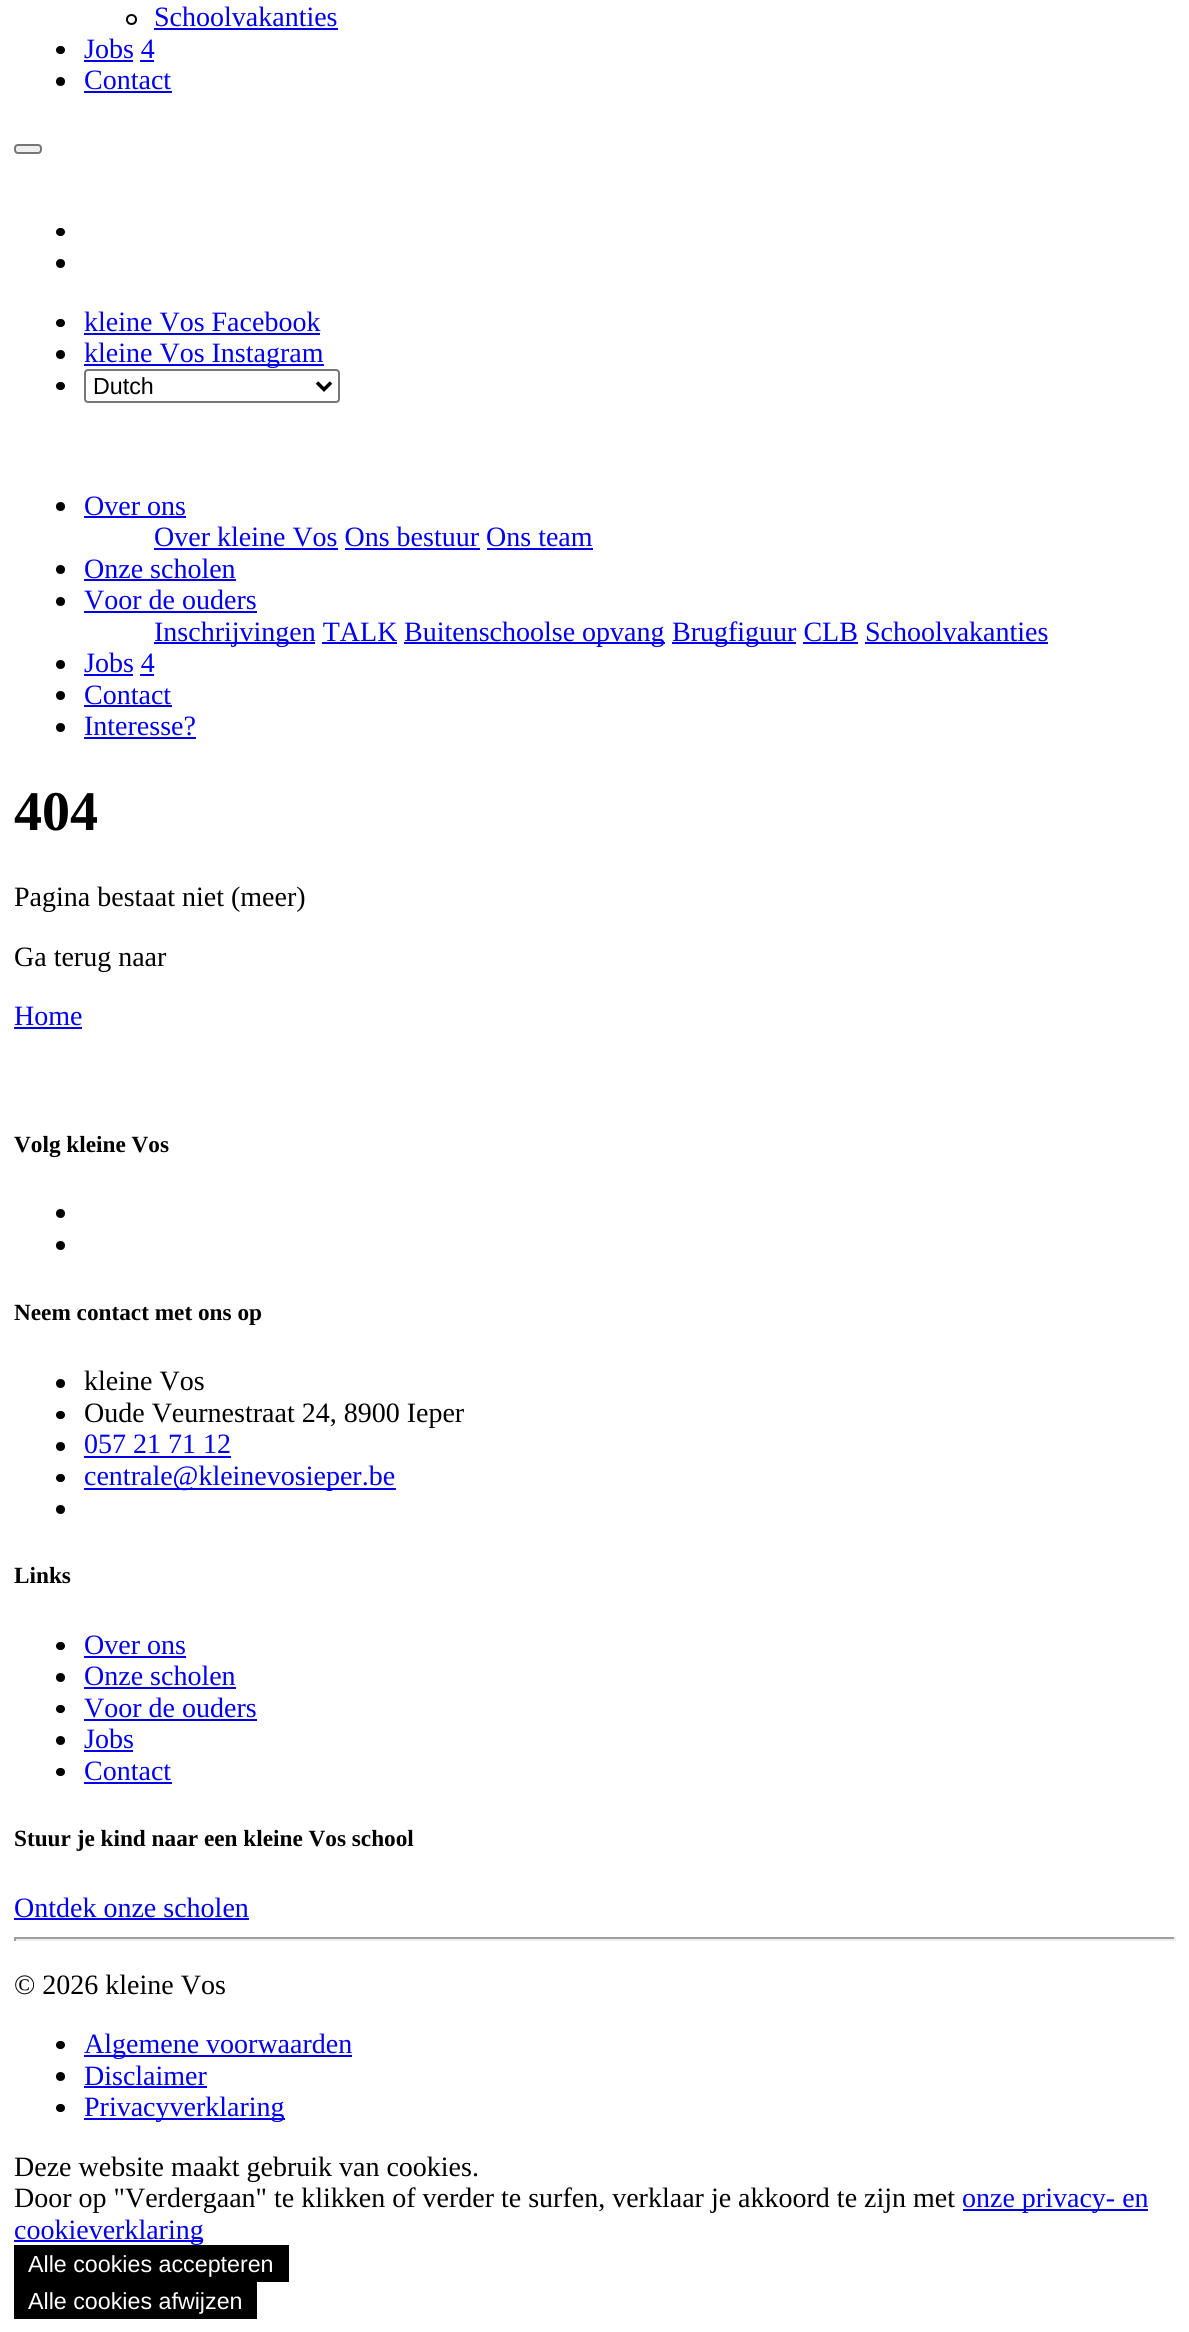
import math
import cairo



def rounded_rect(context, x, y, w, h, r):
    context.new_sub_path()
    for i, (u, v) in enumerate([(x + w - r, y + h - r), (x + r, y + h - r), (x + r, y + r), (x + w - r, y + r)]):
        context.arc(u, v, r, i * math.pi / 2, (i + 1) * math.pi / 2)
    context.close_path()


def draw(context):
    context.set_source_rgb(1, 1, 1)
    context.paint()
    context.arc(131.5, 19.5, 4.5, 0, 2 * math.pi)
    context.set_source_rgb(0, 0, 0)
    context.stroke()
    context.set_source_rgb(0, 0, 238 / 255)
    context.rectangle(154, 28, 184, 2)
    context.fill()
    context.set_source_rgb(0, 0, 0)
    rounded_rect(context, 56, 46, 9, 8, 4)
    context.fill()
    context.set_source_rgb(0, 0, 238 / 255)
    context.rectangle(84, 60, 49, 2)
    context.fill()
    context.rectangle(140, 60, 14, 2)
    context.fill()
    context.set_source_rgb(0, 0, 0)
    context.arc(60.5, 81.5, 4.5, 0, 2 * math.pi)
    context.fill()
    context.set_source_rgb(0, 0, 238 / 255)
    context.rectangle(84, 91, 88, 2)
    context.fill()
    context.set_source_rgb(239 / 255, 239 / 255, 239 / 255)
    rounded_rect(context, 15, 145, 26, 8, 3)
    context.fill_preserve()
    context.set_source_rgb(118 / 255, 118 / 255, 118 / 255)
    context.stroke()
    context.set_source_rgb(0, 0, 0)
    rounded_rect(context, 56, 228, 9, 8, 4)
    context.fill()
    context.arc(60.5, 263.5, 4.5, 0, 2 * math.pi)
    context.fill()
    rounded_rect(context, 56, 319, 9, 8, 4)
    context.fill()
    context.set_source_rgb(0, 0, 238 / 255)
    context.rectangle(84, 333, 236, 2)
    context.fill()
    context.set_source_rgb(0, 0, 0)
    context.arc(60.5, 354.5, 4.5, 0, 2 * math.pi)
    context.fill()
    context.set_source_rgb(0, 0, 238 / 255)
    context.rectangle(84, 364, 240, 2)
    context.fill()
    context.set_source_rgb(0, 0, 0)
    rounded_rect(context, 56, 382, 9, 8, 4)
    context.fill()
    rounded_rect(context, 85, 370, 254, 32, 3)
    context.set_source_rgb(118 / 255, 118 / 255, 118 / 255)
    context.stroke()
    context.new_path()
    context.move_to(317, 382.5)
    context.line_to(324, 389.5)
    context.line_to(331, 382.5)
    context.set_source_rgb(0, 0, 0)
    context.set_line_width(3.5)
    context.stroke()
    context.arc(60.5, 506.5, 4.5, 0, 2 * math.pi)
    context.fill()
    context.set_source_rgb(0, 0, 238 / 255)
    context.rectangle(84, 516, 102, 2)
    context.fill()
    context.rectangle(154, 548, 184, 2)
    context.fill()
    context.rectangle(345, 548, 135, 2)
    context.fill()
    context.rectangle(487, 548, 106, 2)
    context.fill()
    context.set_source_rgb(0, 0, 0)
    context.arc(60.5, 569.5, 4.5, 0, 2 * math.pi)
    context.fill()
    context.set_source_rgb(0, 0, 238 / 255)
    context.rectangle(84, 579, 152, 2)
    context.fill()
    context.set_source_rgb(0, 0, 0)
    context.arc(60.5, 601.5, 4.5, 0, 2 * math.pi)
    context.fill()
    context.set_source_rgb(0, 0, 238 / 255)
    context.rectangle(84, 611, 173, 2)
    context.fill()
    context.rectangle(154, 642, 161, 2)
    context.fill()
    context.rectangle(404, 642, 261, 2)
    context.fill()
    context.rectangle(672, 642, 124, 2)
    context.fill()
    context.rectangle(322, 642, 75, 2)
    context.fill()
    context.rectangle(803, 642, 55, 2)
    context.fill()
    context.rectangle(865, 642, 183, 2)
    context.fill()
    context.set_source_rgb(0, 0, 0)
    context.arc(60.5, 664.5, 4.5, 0, 2 * math.pi)
    context.fill()
    context.set_source_rgb(0, 0, 238 / 255)
    context.rectangle(84, 674, 49, 2)
    context.fill()
    context.rectangle(140, 674, 14, 2)
    context.fill()
    context.set_source_rgb(0, 0, 0)
    context.arc(60.5, 695.5, 4.5, 0, 2 * math.pi)
    context.fill()
    context.set_source_rgb(0, 0, 238 / 255)
    context.rectangle(84, 705, 88, 2)
    context.fill()
    context.set_source_rgb(0, 0, 0)
    context.arc(60.5, 727.5, 4.5, 0, 2 * math.pi)
    context.fill()
    context.set_source_rgb(0, 0, 238 / 255)
    context.rectangle(84, 737, 112, 2)
    context.fill()
    context.rectangle(14, 1027, 68, 2)
    context.fill()
    context.set_source_rgb(0, 0, 0)
    context.arc(60.5, 1213.5, 4.5, 0, 2 * math.pi)
    context.fill()
    context.arc(60.5, 1245.5, 4.5, 0, 2 * math.pi)
    context.fill()
    context.arc(60.5, 1383.5, 4.5, 0, 2 * math.pi)
    context.fill()
    rounded_rect(context, 56, 1411, 9, 8, 4)
    context.fill()
    context.arc(60.5, 1446.5, 4.5, 0, 2 * math.pi)
    context.fill()
    context.set_source_rgb(0, 0, 238 / 255)
    context.rectangle(84, 1456, 147, 2)
    context.fill()
    context.set_source_rgb(0, 0, 0)
    rounded_rect(context, 56, 1474, 9, 8, 4)
    context.fill()
    context.set_source_rgb(0, 0, 238 / 255)
    context.rectangle(84, 1488, 312, 2)
    context.fill()
    context.set_source_rgb(0, 0, 0)
    context.arc(60.5, 1509.5, 4.5, 0, 2 * math.pi)
    context.fill()
    rounded_rect(context, 56, 1642, 9, 8, 4)
    context.fill()
    context.set_source_rgb(0, 0, 238 / 255)
    context.rectangle(84, 1656, 102, 2)
    context.fill()
    context.set_source_rgb(0, 0, 0)
    context.arc(60.5, 1677.5, 4.5, 0, 2 * math.pi)
    context.fill()
    context.set_source_rgb(0, 0, 238 / 255)
    context.rectangle(84, 1687, 152, 2)
    context.fill()
    context.set_source_rgb(0, 0, 0)
    rounded_rect(context, 56, 1705, 9, 8, 4)
    context.fill()
    context.set_source_rgb(0, 0, 238 / 255)
    context.rectangle(84, 1719, 173, 2)
    context.fill()
    context.set_source_rgb(0, 0, 0)
    context.arc(60.5, 1740.5, 4.5, 0, 2 * math.pi)
    context.fill()
    context.set_source_rgb(0, 0, 238 / 255)
    context.rectangle(84, 1750, 49, 2)
    context.fill()
    context.set_source_rgb(0, 0, 0)
    rounded_rect(context, 56, 1768, 9, 8, 4)
    context.fill()
    context.set_source_rgb(0, 0, 238 / 255)
    context.rectangle(84, 1782, 88, 2)
    context.fill()
    context.rectangle(14, 1918, 235, 2)
    context.fill()
    context.set_source_rgb(159 / 255, 159 / 255, 159 / 255)
    context.rectangle(14, 1937, 1162, 2)
    context.fill()
    context.set_source_rgb(238 / 255, 238 / 255, 238 / 255)
    context.rectangle(1174, 1937, 2, 4)
    context.fill()
    context.rectangle(14, 1939, 1162, 2)
    context.fill()
    context.set_source_rgb(159 / 255, 159 / 255, 159 / 255)
    context.rectangle(14, 1937, 2, 4)
    context.fill()
    context.set_source_rgb(0, 0, 0)
    rounded_rect(context, 56, 2041, 9, 8, 4)
    context.fill()
    context.set_source_rgb(0, 0, 238 / 255)
    context.rectangle(84, 2055, 268, 2)
    context.fill()
    context.set_source_rgb(0, 0, 0)
    context.arc(60.5, 2076.5, 4.5, 0, 2 * math.pi)
    context.fill()
    context.set_source_rgb(0, 0, 238 / 255)
    context.rectangle(84, 2086, 123, 2)
    context.fill()
    context.set_source_rgb(0, 0, 0)
    rounded_rect(context, 56, 2104, 9, 8, 4)
    context.fill()
    context.set_source_rgb(0, 0, 238 / 255)
    context.rectangle(84, 2118, 201, 2)
    context.fill()
    context.rectangle(963, 2209, 185, 2)
    context.fill()
    context.rectangle(14, 2240, 189, 2)
    context.fill()
    context.set_source_rgb(0, 0, 0)
    context.rectangle(14, 2282, 243, 37)
    context.fill()
    context.select_font_face("Liberation Serif")
    context.set_font_size(28)
    context.set_source_rgb(0, 0, 238 / 255)
    context.move_to(154, 26)
    context.show_text("Schoolvakanties")
    context.move_to(84, 58)
    context.show_text("Jobs 4")
    context.move_to(84, 89)
    context.show_text("Contact")
    context.move_to(84, 331)
    context.show_text("kleine Vos Facebook")
    context.move_to(84, 362)
    context.show_text("kleine Vos Instagram")
    context.select_font_face("Liberation Sans")
    context.set_font_size(23.25)
    context.set_source_rgb(0, 0, 0)
    context.move_to(93, 394)
    context.show_text("Dutch")
    context.select_font_face("Liberation Serif")
    context.set_font_size(28)
    context.set_source_rgb(0, 0, 238 / 255)
    context.move_to(84, 515)
    context.show_text("Over ons")
    context.move_to(154, 546)
    context.show_text("Over kleine Vos Ons bestuur Ons team")
    context.move_to(84, 578)
    context.show_text("Onze scholen")
    context.move_to(84, 609)
    context.show_text("Voor de ouders")
    context.move_to(154, 641)
    context.show_text("Inschrijvingen TALK")
    context.move_to(404, 641)
    context.show_text("Buitenschoolse opvang")
    context.move_to(672, 641)
    context.show_text("Brugfiguur CLB Schoolvakanties")
    context.move_to(84, 672)
    context.show_text("Jobs 4")
    context.move_to(84, 704)
    context.show_text("Contact")
    context.move_to(84, 735)
    context.show_text("Interesse?")
    context.select_font_face("Liberation Serif", cairo.FontSlant.NORMAL, cairo.FontWeight.BOLD)
    context.set_font_size(56)
    context.set_source_rgb(0, 0, 0)
    context.move_to(14, 830)
    context.show_text("404")
    context.select_font_face("Liberation Serif")
    context.set_font_size(28)
    context.move_to(14, 906)
    context.show_text("Pagina bestaat niet (meer)")
    context.move_to(14, 966)
    context.show_text("Ga terug naar")
    context.set_source_rgb(0, 0, 238 / 255)
    context.move_to(14, 1025)
    context.show_text("Home")
    context.select_font_face("Liberation Serif", cairo.FontSlant.NORMAL, cairo.FontWeight.BOLD)
    context.set_font_size(23.25)
    context.set_source_rgb(0, 0, 0)
    context.move_to(14, 1152)
    context.show_text("Volg kleine Vos")
    context.move_to(14, 1320)
    context.show_text("Neem contact met ons op")
    context.select_font_face("Liberation Serif")
    context.set_font_size(28)
    context.move_to(84, 1390)
    context.show_text("kleine Vos")
    context.move_to(84, 1422)
    context.show_text("Oude Veurnestraat 24, 8900 Ieper")
    context.set_source_rgb(0, 0, 238 / 255)
    context.move_to(84, 1453)
    context.show_text("057 21 71 12")
    context.move_to(84, 1485)
    context.show_text("centrale@kleinevosieper.be")
    context.select_font_face("Liberation Serif", cairo.FontSlant.NORMAL, cairo.FontWeight.BOLD)
    context.set_font_size(23.25)
    context.set_source_rgb(0, 0, 0)
    context.move_to(14, 1583)
    context.show_text("Links")
    context.select_font_face("Liberation Serif")
    context.set_font_size(28)
    context.set_source_rgb(0, 0, 238 / 255)
    context.move_to(84, 1654)
    context.show_text("Over ons")
    context.move_to(84, 1685)
    context.show_text("Onze scholen")
    context.move_to(84, 1717)
    context.show_text("Voor de ouders")
    context.move_to(84, 1748)
    context.show_text("Jobs")
    context.move_to(84, 1780)
    context.show_text("Contact")
    context.select_font_face("Liberation Serif", cairo.FontSlant.NORMAL, cairo.FontWeight.BOLD)
    context.set_font_size(23.25)
    context.set_source_rgb(0, 0, 0)
    context.move_to(14, 1846)
    context.show_text("Stuur je kind naar een kleine Vos school")
    context.select_font_face("Liberation Serif")
    context.set_font_size(28)
    context.set_source_rgb(0, 0, 238 / 255)
    context.move_to(14, 1917)
    context.show_text("Ontdek onze scholen")
    context.set_source_rgb(0, 0, 0)
    context.move_to(14, 1994)
    context.show_text("© 2026 kleine Vos")
    context.set_source_rgb(0, 0, 238 / 255)
    context.move_to(84, 2053)
    context.show_text("Algemene voorwaarden")
    context.move_to(84, 2085)
    context.show_text("Disclaimer")
    context.move_to(84, 2116)
    context.show_text("Privacyverklaring")
    context.set_source_rgb(0, 0, 0)
    context.move_to(14, 2176)
    context.show_text("Deze website maakt gebruik van cookies.")
    context.move_to(14, 2207)
    context.show_text("Door op \"Verdergaan\" te klikken of verder te surfen, verklaar je akkoord te zijn met")
    context.set_source_rgb(0, 0, 238 / 255)
    context.move_to(962, 2207)
    context.show_text("onze privacy- en")
    context.move_to(14, 2239)
    context.show_text("cookieverklaring")
    context.set_source_rgb(0, 0, 0)
    context.rectangle(14, 2245, 275, 37)
    context.fill()
    context.select_font_face("Liberation Sans")
    context.set_font_size(23.25)
    context.set_source_rgb(1, 1, 1)
    context.move_to(28, 2272)
    context.show_text("Alle cookies accepteren")
    context.move_to(28, 2309)
    context.show_text("Alle cookies afwijzen")


surface = cairo.ImageSurface(cairo.Format.RGB24, 1189, 2332)
context = cairo.Context(surface)
options = cairo.FontOptions()
options.set_hint_metrics(cairo.HintMetrics.OFF)
options.set_hint_style(cairo.HintStyle.NONE)
context.set_font_options(options)
context.set_miter_limit(4)
draw(context)
surface.write_to_png("out.png")
